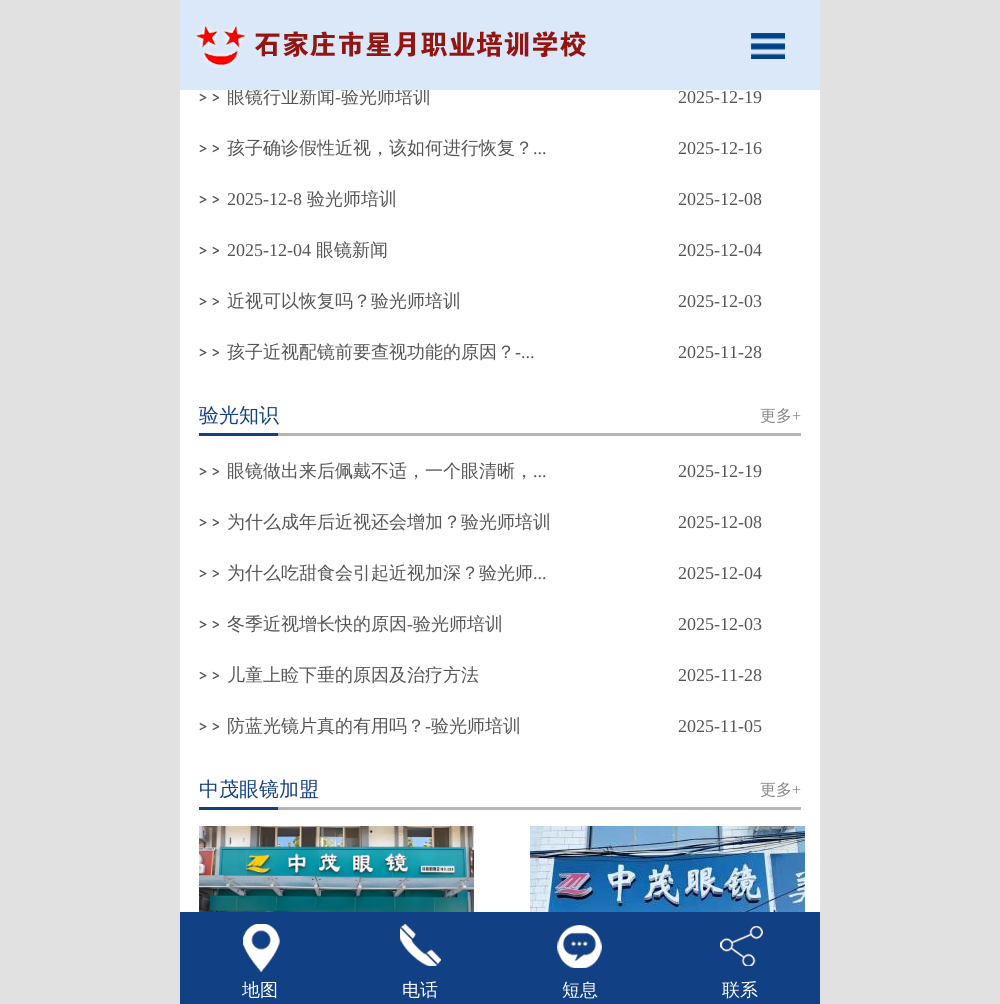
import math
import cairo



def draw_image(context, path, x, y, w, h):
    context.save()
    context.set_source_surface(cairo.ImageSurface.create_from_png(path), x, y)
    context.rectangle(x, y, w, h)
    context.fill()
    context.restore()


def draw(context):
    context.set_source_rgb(225 / 255, 225 / 255, 225 / 255)
    context.paint()
    context.set_source_rgb(1, 1, 1)
    context.rectangle(180, 90, 640, 822)
    context.fill()
    draw_image(context, "images/3.png", 199, 93, 20, 9)
    draw_image(context, "images/3.png", 199, 144, 20, 9)
    draw_image(context, "images/3.png", 199, 195, 20, 9)
    draw_image(context, "images/3.png", 199, 246, 20, 9)
    draw_image(context, "images/3.png", 199, 297, 20, 9)
    draw_image(context, "images/3.png", 199, 348, 20, 9)
    draw_image(context, "images/4.png", 199, 433, 602, 3)
    draw_image(context, "images/3.png", 199, 467, 20, 9)
    draw_image(context, "images/3.png", 199, 518, 20, 9)
    draw_image(context, "images/3.png", 199, 569, 20, 9)
    draw_image(context, "images/3.png", 199, 620, 20, 9)
    draw_image(context, "images/3.png", 199, 671, 20, 9)
    draw_image(context, "images/3.png", 199, 722, 20, 9)
    draw_image(context, "images/4.png", 199, 807, 602, 3)
    draw_image(context, "images/5.png", 199, 826, 275, 86)
    draw_image(context, "images/6.png", 530, 826, 275, 86)
    context.set_source_rgb(18 / 255, 64 / 255, 132 / 255)
    context.rectangle(180, 912, 640, 92)
    context.fill()
    draw_image(context, "images/7.png", 243, 924, 37, 48)
    draw_image(context, "images/8.png", 400, 924, 41, 42)
    draw_image(context, "images/9.png", 557, 925, 45, 43)
    draw_image(context, "images/10.png", 720, 926, 43, 40)
    context.select_font_face("WenQuanYi Zen Hei Medium")
    context.set_font_size(18)
    context.set_source_rgb(85 / 255, 85 / 255, 85 / 255)
    context.move_to(227, 103)
    context.show_text("眼镜行业新闻")
    context.select_font_face("Liberation Serif")
    context.move_to(335, 103)
    context.show_text("-")
    context.select_font_face("WenQuanYi Zen Hei Medium")
    context.move_to(341, 103)
    context.show_text("验光师培训")
    context.set_source_rgb(219 / 255, 232 / 255, 249 / 255)
    context.rectangle(180, 0, 640, 90)
    context.fill()
    draw_image(context, "images/2.png", 751, 33, 34, 26)
    draw_image(context, "images/1.png", 196, 25, 390, 43)
    context.select_font_face("Liberation Serif")
    context.set_source_rgb(85 / 255, 85 / 255, 85 / 255)
    context.move_to(678, 103)
    context.show_text("2025-12-19")
    context.select_font_face("WenQuanYi Zen Hei Medium")
    context.move_to(227, 154)
    context.show_text("孩子确诊假性近视，该如何进行恢复？")
    context.select_font_face("Liberation Serif")
    context.move_to(533, 154)
    context.show_text("...")
    context.move_to(678, 154)
    context.show_text("2025-12-16")
    context.move_to(227, 205)
    context.show_text("2025-12-8")
    context.select_font_face("WenQuanYi Zen Hei Medium")
    context.move_to(307, 205)
    context.show_text("验光师培训")
    context.select_font_face("Liberation Serif")
    context.move_to(678, 205)
    context.show_text("2025-12-08")
    context.move_to(227, 256)
    context.show_text("2025-12-04")
    context.select_font_face("WenQuanYi Zen Hei Medium")
    context.move_to(316, 256)
    context.show_text("眼镜新闻")
    context.select_font_face("Liberation Serif")
    context.move_to(678, 256)
    context.show_text("2025-12-04")
    context.select_font_face("WenQuanYi Zen Hei Medium")
    context.move_to(227, 307)
    context.show_text("近视可以恢复吗？验光师培训")
    context.select_font_face("Liberation Serif")
    context.move_to(678, 307)
    context.show_text("2025-12-03")
    context.select_font_face("WenQuanYi Zen Hei Medium")
    context.move_to(227, 358)
    context.show_text("孩子近视配镜前要查视功能的原因？")
    context.select_font_face("Liberation Serif")
    context.move_to(515, 358)
    context.show_text("-...")
    context.move_to(678, 358)
    context.show_text("2025-11-28")
    context.select_font_face("WenQuanYi Zen Hei Medium")
    context.set_font_size(20)
    context.set_source_rgb(18 / 255, 64 / 255, 132 / 255)
    context.move_to(199, 422)
    context.show_text("验光知识")
    context.set_font_size(16)
    context.set_source_rgb(136 / 255, 136 / 255, 136 / 255)
    context.move_to(760, 421)
    context.show_text("更多")
    context.select_font_face("Liberation Serif")
    context.move_to(792, 421)
    context.show_text("+")
    context.select_font_face("WenQuanYi Zen Hei Medium")
    context.set_font_size(18)
    context.set_source_rgb(85 / 255, 85 / 255, 85 / 255)
    context.move_to(227, 477)
    context.show_text("眼镜做出来后佩戴不适，一个眼清晰，")
    context.select_font_face("Liberation Serif")
    context.move_to(533, 477)
    context.show_text("...")
    context.move_to(678, 477)
    context.show_text("2025-12-19")
    context.select_font_face("WenQuanYi Zen Hei Medium")
    context.move_to(227, 528)
    context.show_text("为什么成年后近视还会增加？验光师培训")
    context.select_font_face("Liberation Serif")
    context.move_to(678, 528)
    context.show_text("2025-12-08")
    context.select_font_face("WenQuanYi Zen Hei Medium")
    context.move_to(227, 579)
    context.show_text("为什么吃甜食会引起近视加深？验光师")
    context.select_font_face("Liberation Serif")
    context.move_to(533, 579)
    context.show_text("...")
    context.move_to(678, 579)
    context.show_text("2025-12-04")
    context.select_font_face("WenQuanYi Zen Hei Medium")
    context.move_to(227, 630)
    context.show_text("冬季近视增长快的原因")
    context.select_font_face("Liberation Serif")
    context.move_to(407, 630)
    context.show_text("-")
    context.select_font_face("WenQuanYi Zen Hei Medium")
    context.move_to(413, 630)
    context.show_text("验光师培训")
    context.select_font_face("Liberation Serif")
    context.move_to(678, 630)
    context.show_text("2025-12-03")
    context.select_font_face("WenQuanYi Zen Hei Medium")
    context.move_to(227, 681)
    context.show_text("儿童上睑下垂的原因及治疗方法")
    context.select_font_face("Liberation Serif")
    context.move_to(678, 681)
    context.show_text("2025-11-28")
    context.select_font_face("WenQuanYi Zen Hei Medium")
    context.move_to(227, 732)
    context.show_text("防蓝光镜片真的有用吗？")
    context.select_font_face("Liberation Serif")
    context.move_to(425, 732)
    context.show_text("-")
    context.select_font_face("WenQuanYi Zen Hei Medium")
    context.move_to(431, 732)
    context.show_text("验光师培训")
    context.select_font_face("Liberation Serif")
    context.move_to(678, 732)
    context.show_text("2025-11-05")
    context.select_font_face("WenQuanYi Zen Hei Medium")
    context.set_font_size(20)
    context.set_source_rgb(18 / 255, 64 / 255, 132 / 255)
    context.move_to(199, 796)
    context.show_text("中茂眼镜加盟")
    context.set_font_size(16)
    context.set_source_rgb(136 / 255, 136 / 255, 136 / 255)
    context.move_to(760, 795)
    context.show_text("更多")
    context.select_font_face("Liberation Serif")
    context.move_to(792, 795)
    context.show_text("+")
    context.select_font_face("WenQuanYi Zen Hei Medium")
    context.set_font_size(18)
    context.set_source_rgb(1, 1, 1)
    context.move_to(242, 996)
    context.show_text("地图")
    context.move_to(402, 996)
    context.show_text("电话")
    context.move_to(562, 996)
    context.show_text("短息")
    context.move_to(722, 996)
    context.show_text("联系")


surface = cairo.ImageSurface(cairo.Format.RGB24, 1000, 1004)
context = cairo.Context(surface)
options = cairo.FontOptions()
options.set_hint_metrics(cairo.HintMetrics.OFF)
options.set_hint_style(cairo.HintStyle.NONE)
context.set_font_options(options)
context.set_miter_limit(4)
draw(context)
surface.write_to_png("out.png")
